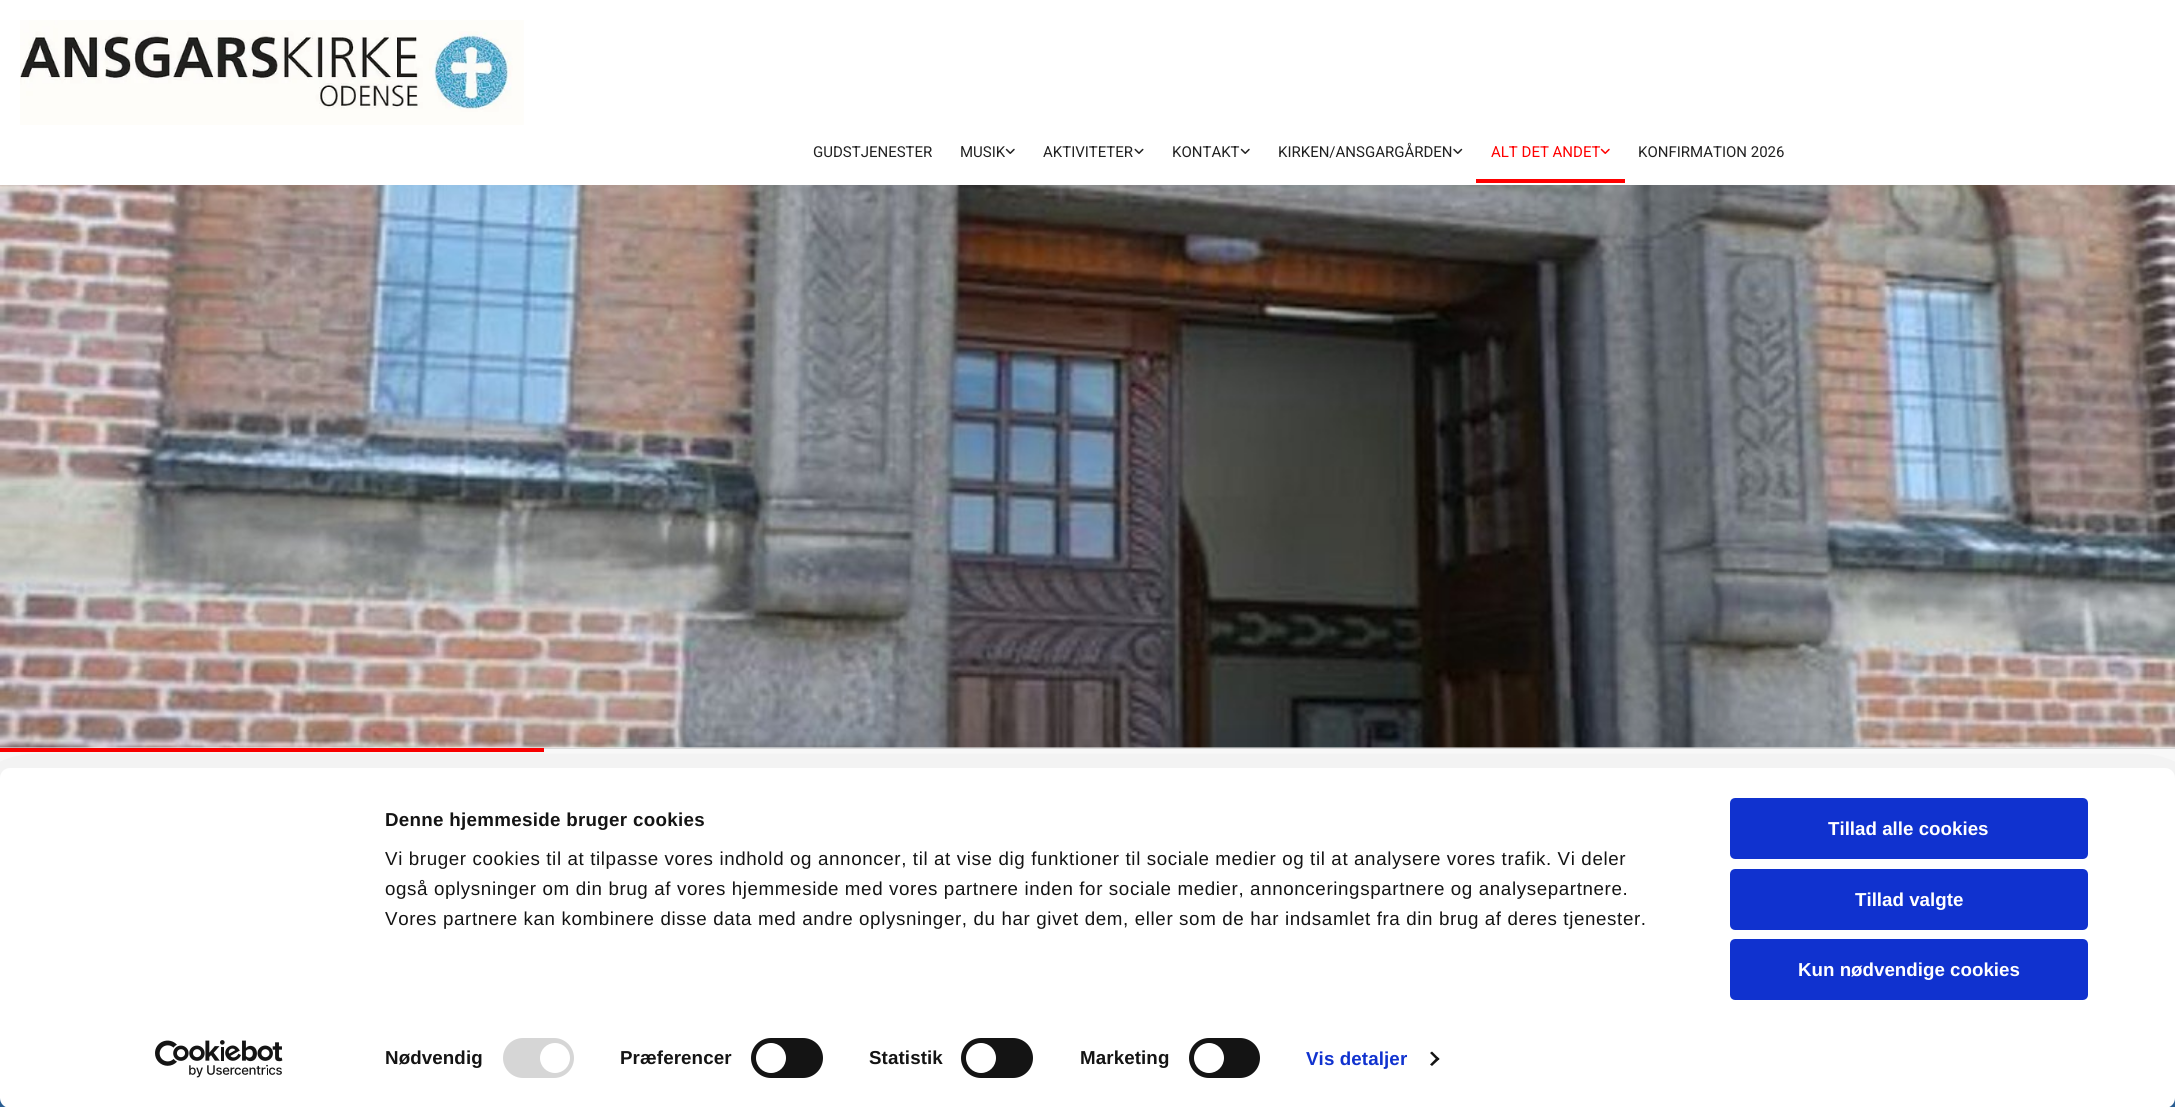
import math
import cairo



def draw_spaced(context, x, y, s, letter, word):
    context.move_to(x, y)
    for ch in s:
        context.show_text(ch)
        context.rel_move_to(letter + word * (ch == ' '), 0)


def rounded_rect(context, x, y, w, h, r):
    context.new_sub_path()
    for i, (u, v) in enumerate([(x + w - r, y + h - r), (x + r, y + h - r), (x + r, y + r), (x + w - r, y + r)]):
        context.arc(u, v, r, i * math.pi / 2, (i + 1) * math.pi / 2)
    context.close_path()


def draw_shadow(context, x, y, w, h, r, blur, alpha):
    context.push_group_with_content(cairo.Content.ALPHA)
    context.set_operator(cairo.Operator.SOURCE)
    for i in range(15, -16, -2):
        e = blur * i / 6
        if min(w, h) + 2 * e > 0:
            context.set_source_rgba(0, 0, 0, alpha * math.erfc((i - 1) / 8.5) / 2)
            rounded_rect(context, x - e, y - e, w + 2 * e, h + 2 * e, max(0, min(r + e + blur * .6, min(w, h) / 2 + e)))
            context.fill()
    context.mask(context.pop_group())


def draw_image(context, path, x, y, w, h):
    context.save()
    context.set_source_surface(cairo.ImageSurface.create_from_png(path), x, y)
    context.rectangle(x, y, w, h)
    context.fill()
    context.restore()


def draw(context):
    context.set_source_rgb(1, 1, 1)
    context.paint()
    draw_image(context, "images/1.png", 20, 20, 504, 105)
    draw_image(context, "images/3.png", 1134, 148, 10, 6)
    draw_image(context, "images/2.png", 1240, 148, 10, 6)
    draw_image(context, "images/4.png", 1453, 148, 10, 6)
    context.set_source_rgb(1, 0, 0)
    context.rectangle(1476, 179, 149, 4)
    context.fill()
    draw_image(context, "images/5.png", 1600, 148, 10, 6)
    draw_image(context, "images/6.png", 0, 185, 2175, 563)
    context.rectangle(0, 748, 544, 4)
    context.fill()
    context.set_source_rgb(222 / 255, 222 / 255, 222 / 255)
    context.rectangle(544, 748, 1631, 1)
    context.fill()
    context.set_source_rgb(48 / 255, 109 / 255, 171 / 255)
    context.rectangle(0, 1098, 2175, 9)
    context.fill()
    context.set_source_rgb(0, 0, 0)
    draw_shadow(context, 0, 805, 2175, 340, 10, 44, 0.3)
    context.set_source_rgb(1, 1, 1)
    rounded_rect(context, 0, 768, 2175, 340, 10)
    context.fill()
    context.set_source_rgb(214 / 255, 214 / 255, 214 / 255)
    rounded_rect(context, 503, 1038, 71, 40, 20)
    context.fill()
    context.set_source_rgb(1, 1, 1)
    context.arc(555, 1058, 15, 0, 2 * math.pi)
    context.fill()
    context.set_source_rgb(20 / 255, 20 / 255, 20 / 255)
    rounded_rect(context, 751, 1038, 72, 40, 20)
    context.fill()
    context.set_source_rgb(1, 1, 1)
    context.arc(771, 1058, 15, 0, 2 * math.pi)
    context.fill()
    context.set_source_rgb(20 / 255, 20 / 255, 20 / 255)
    rounded_rect(context, 961, 1038, 72, 40, 20)
    context.fill()
    context.set_source_rgb(1, 1, 1)
    context.arc(981, 1058, 15, 0, 2 * math.pi)
    context.fill()
    context.set_source_rgb(20 / 255, 20 / 255, 20 / 255)
    rounded_rect(context, 1189, 1038, 71, 40, 20)
    context.fill()
    context.set_source_rgb(1, 1, 1)
    context.arc(1209, 1058, 15, 0, 2 * math.pi)
    context.fill()
    context.set_source_rgb(20 / 255, 20 / 255, 20 / 255)
    context.new_path()
    context.move_to(1432, 1051.5)
    context.line_to(1439.5, 1059)
    context.line_to(1437.5, 1060.5)
    context.line_to(1430, 1053)
    context.close_path()
    context.fill()
    context.new_path()
    context.move_to(1437.5, 1057)
    context.line_to(1439.5, 1059)
    context.line_to(1432, 1066)
    context.line_to(1430, 1064.5)
    context.close_path()
    context.fill()
    context.set_source_rgb(16 / 255, 50 / 255, 207 / 255)
    rounded_rect(context, 1731.5, 799.5, 355, 58, 3.5)
    context.fill_preserve()
    context.set_line_width(3)
    context.stroke()
    rounded_rect(context, 1731.5, 870.5, 355, 58, 3.5)
    context.fill_preserve()
    context.stroke()
    rounded_rect(context, 1731.5, 940.5, 355, 58, 3.5)
    context.fill_preserve()
    context.stroke()
    draw_image(context, "images/7.png", 155, 1040, 128, 38)
    context.select_font_face("Roboto")
    context.set_font_size(15)
    context.set_source_rgb(33 / 255, 33 / 255, 33 / 255)
    context.move_to(813, 157)
    context.show_text("GUDSTJENESTER")
    context.move_to(960, 157)
    context.show_text("MUSIK")
    draw_image(context, "images/2.png", 1005, 148, 10, 6)
    context.move_to(1043, 157)
    context.show_text("AKTIVITETER")
    context.move_to(1172, 157)
    context.show_text("KONTAKT")
    context.move_to(1278, 157)
    context.show_text("KIRKEN/ANSGARGÅRDEN")
    context.set_source_rgb(1, 0, 0)
    context.move_to(1491, 157)
    context.show_text("ALT DET ANDET")
    context.set_source_rgb(33 / 255, 33 / 255, 33 / 255)
    context.move_to(1638, 157)
    context.show_text("KONFIRMATION 2026")
    context.select_font_face("Liberation Sans", cairo.FontSlant.NORMAL, cairo.FontWeight.BOLD)
    context.set_font_size(18.75)
    context.set_source_rgb(20 / 255, 20 / 255, 20 / 255)
    draw_spaced(context, 385, 826, "Denne hjemmeside bruger cookies", 0.3, 0)
    context.select_font_face("Liberation Sans")
    draw_spaced(context, 385, 865, "Vi bruger cookies til at tilpasse vores indhold og annoncer, til at vise dig funktioner til sociale medier og til at analysere vores trafik. Vi deler", 0.62, 0)
    draw_spaced(context, 385, 895, "også oplysninger om din brug af vores hjemmeside med vores partnere inden for sociale medier, annonceringspartnere og analysepartnere.", 0.62, 0)
    draw_spaced(context, 385, 925, "Vores partnere kan kombinere disse data med andre oplysninger, du har givet dem, eller som de har indsamlet fra din brug af deres tjenester.", 0.62, 0)
    context.select_font_face("Liberation Sans", cairo.FontSlant.NORMAL, cairo.FontWeight.BOLD)
    draw_spaced(context, 385, 1064, "Nødvendig", 0.1, 0)
    draw_spaced(context, 620, 1064, "Præferencer", 0.1, 0)
    draw_spaced(context, 869, 1064, "Statistik", 0.1, 0)
    draw_spaced(context, 1080, 1064, "Marketing", 0.1, 0)
    context.set_source_rgb(16 / 255, 50 / 255, 207 / 255)
    draw_spaced(context, 1306, 1065, "Vis detaljer", 0.1, 0)
    context.set_source_rgb(1, 1, 1)
    context.move_to(1828, 835)
    context.show_text("Tillad alle cookies")
    context.move_to(1855, 906)
    context.show_text("Tillad valgte")
    context.move_to(1798, 976)
    context.show_text("Kun nødvendige cookies")


surface = cairo.ImageSurface(cairo.Format.RGB24, 2175, 1107)
context = cairo.Context(surface)
options = cairo.FontOptions()
options.set_hint_metrics(cairo.HintMetrics.OFF)
options.set_hint_style(cairo.HintStyle.NONE)
context.set_font_options(options)
context.set_miter_limit(4)
draw(context)
surface.write_to_png("out.png")
